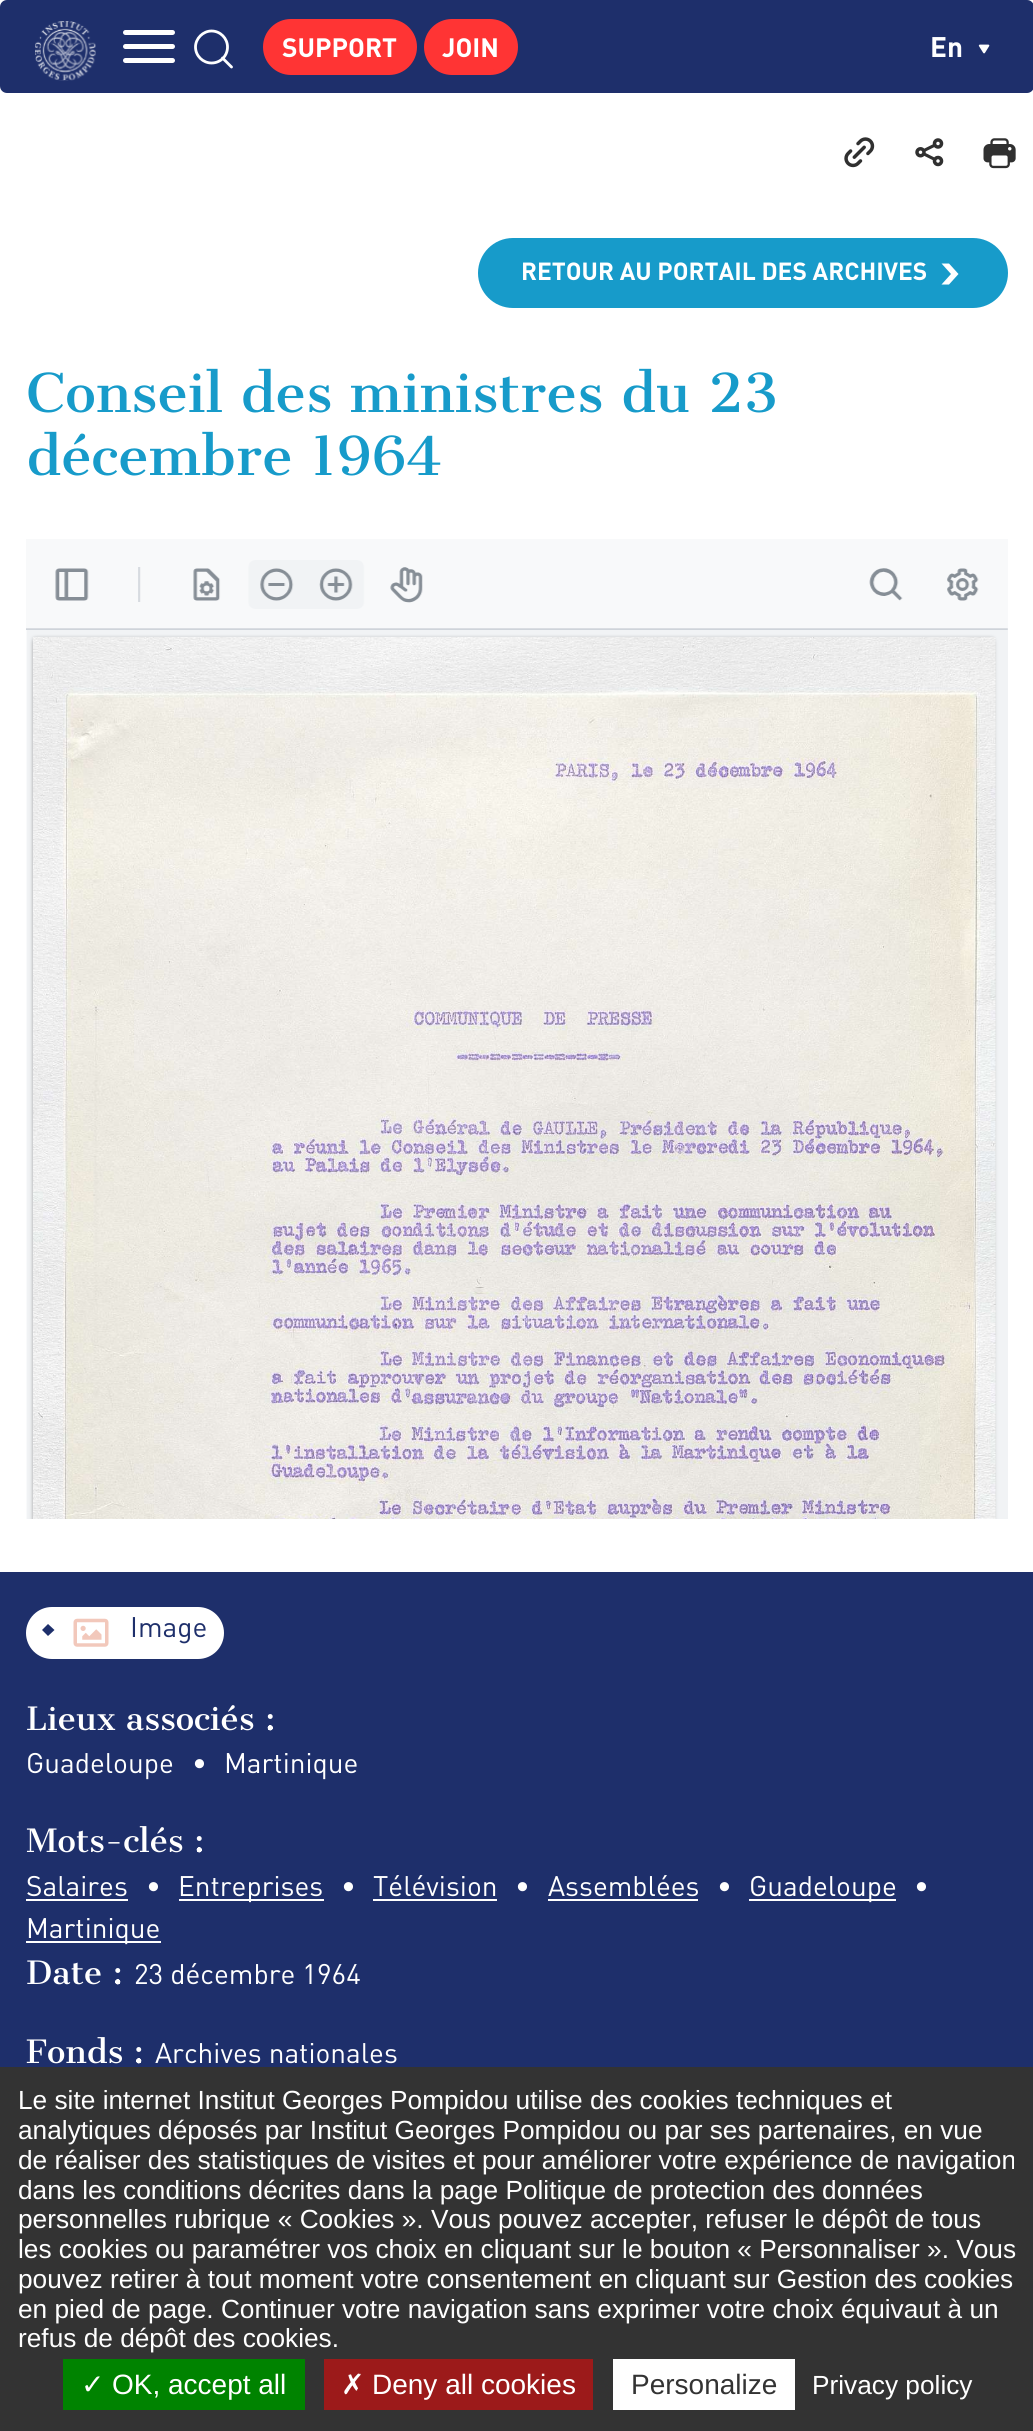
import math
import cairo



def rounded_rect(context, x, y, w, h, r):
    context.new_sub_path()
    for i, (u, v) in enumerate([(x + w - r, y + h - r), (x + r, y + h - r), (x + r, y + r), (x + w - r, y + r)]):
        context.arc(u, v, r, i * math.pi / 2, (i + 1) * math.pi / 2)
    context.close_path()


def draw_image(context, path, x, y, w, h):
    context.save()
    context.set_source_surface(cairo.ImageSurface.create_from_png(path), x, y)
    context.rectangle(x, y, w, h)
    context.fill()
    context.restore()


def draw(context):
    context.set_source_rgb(1, 1, 1)
    context.paint()
    context.set_source_rgb(30 / 255, 47 / 255, 107 / 255)
    rounded_rect(context, 0, 0, 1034, 93, 7)
    context.fill()
    context.set_source_rgb(1, 1, 1)
    rounded_rect(context, 123, 44, 52, 5, 2.5)
    context.fill()
    rounded_rect(context, 123, 30, 52, 5, 2.5)
    context.fill()
    rounded_rect(context, 123, 58, 52, 5, 2.5)
    context.fill()
    context.new_path()
    context.move_to(231.5, 67)
    context.line_to(222.5, 58)
    context.move_to(227.5, 47)
    context.curve_to(227.5, 56, 220.5, 63, 211.5, 63)
    context.curve_to(203, 63, 195.5, 56, 195.5, 47)
    context.curve_to(195.5, 38.5, 203, 31, 211.5, 31)
    context.curve_to(220.5, 31, 227.5, 38.5, 227.5, 47)
    context.close_path()
    context.set_line_width(2.8)
    context.set_line_cap(cairo.LineCap.ROUND)
    context.set_line_join(cairo.LineJoin.ROUND)
    context.stroke()
    draw_image(context, "images/1.png", 35, 21, 61, 60)
    context.set_source_rgb(1, 52 / 255, 52 / 255)
    rounded_rect(context, 265.5, 21.5, 149, 51, 25.5)
    context.fill_preserve()
    context.set_line_width(5)
    context.set_line_cap(cairo.LineCap.BUTT)
    context.set_line_join(cairo.LineJoin.MITER)
    context.stroke()
    rounded_rect(context, 426.5, 21.5, 89, 51, 25.5)
    context.fill_preserve()
    context.stroke()
    draw_image(context, "images/2.png", 978, 44, 12, 10)
    draw_image(context, "images/3.png", 844, 137, 31, 31)
    draw_image(context, "images/4.png", 915, 138, 29, 29)
    draw_image(context, "images/5.png", 983, 138, 33, 31)
    context.set_source_rgb(23 / 255, 155 / 255, 202 / 255)
    rounded_rect(context, 478, 238, 530, 70, 35)
    context.fill()
    context.set_source_rgb(1, 1, 1)
    context.new_path()
    context.move_to(941.5, 284.5)
    context.line_to(949, 284.5)
    context.line_to(958.5, 274)
    context.line_to(949, 263.5)
    context.line_to(941.5, 263.5)
    context.line_to(951, 274)
    context.close_path()
    context.fill()
    draw_image(context, "images/6.png", 26, 539, 982, 980)
    context.set_source_rgb(30 / 255, 47 / 255, 107 / 255)
    context.rectangle(0, 1572, 1033, 495)
    context.fill()
    context.set_source_rgb(1, 1, 1)
    rounded_rect(context, 26, 1607, 198, 52, 26)
    context.fill()
    context.set_source_rgb(30 / 255, 47 / 255, 107 / 255)
    context.new_path()
    context.move_to(48, 1624)
    context.line_to(54.5, 1630)
    context.line_to(48, 1636)
    context.line_to(42, 1630)
    context.close_path()
    context.fill()
    draw_image(context, "images/7.png", 73, 1618, 36, 29)
    context.set_source_rgb(1, 1, 1)
    context.rectangle(26, 1899, 102, 2)
    context.fill()
    context.rectangle(179, 1899, 145, 2)
    context.fill()
    context.rectangle(373, 1899, 124, 2)
    context.fill()
    context.rectangle(548, 1899, 150, 2)
    context.fill()
    context.rectangle(749, 1899, 147, 2)
    context.fill()
    context.rectangle(26, 1941, 135, 2)
    context.fill()
    context.set_source_rgb(51 / 255, 51 / 255, 51 / 255)
    context.rectangle(0, 2067, 1033, 364)
    context.fill()
    context.set_source_rgb(0, 131 / 255, 0)
    context.rectangle(63, 2359, 242, 51)
    context.fill()
    context.set_source_rgb(156 / 255, 26 / 255, 26 / 255)
    context.rectangle(324, 2359, 269, 51)
    context.fill()
    context.set_source_rgb(1, 1, 1)
    context.rectangle(613, 2359, 182, 51)
    context.fill()
    context.select_font_face("DIN", cairo.FontSlant.NORMAL, cairo.FontWeight.BOLD)
    context.set_font_size(26.25)
    context.move_to(282, 57)
    context.show_text("SUPPORT")
    context.move_to(442, 57)
    context.show_text("JOIN")
    context.set_font_size(28)
    context.move_to(930, 57)
    context.show_text("En")
    context.set_font_size(24.5)
    context.move_to(521, 280)
    context.show_text("RETOUR AU PORTAIL DES ARCHIVES")
    context.select_font_face("Cantata One")
    context.set_font_size(52.5)
    context.set_source_rgb(23 / 255, 155 / 255, 202 / 255)
    context.move_to(26, 412)
    context.show_text("Conseil des ministres du 23")
    context.move_to(26, 475)
    context.show_text("décembre 1964")
    context.select_font_face("DIN")
    context.set_font_size(28)
    context.set_source_rgb(30 / 255, 47 / 255, 107 / 255)
    context.move_to(130, 1637)
    context.show_text("Image")
    context.select_font_face("Cantata One")
    context.set_font_size(31.5)
    context.set_source_rgb(1, 1, 1)
    context.move_to(26, 1730)
    context.show_text("Lieux associés :")
    context.select_font_face("DIN")
    context.set_font_size(28)
    context.move_to(26, 1773)
    context.show_text("Guadeloupe")
    context.move_to(192, 1773)
    context.show_text("•")
    context.move_to(224, 1773)
    context.show_text("Martinique")
    context.select_font_face("Cantata One")
    context.set_font_size(31.5)
    context.move_to(26, 1852)
    context.show_text("Mots-clés :")
    context.select_font_face("DIN")
    context.set_font_size(28)
    context.move_to(26, 1896)
    context.show_text("Salaires")
    context.move_to(146, 1896)
    context.show_text("•")
    context.move_to(178, 1896)
    context.show_text("Entreprises")
    context.move_to(341, 1896)
    context.show_text("•")
    context.move_to(373, 1896)
    context.show_text("Télévision")
    context.move_to(515, 1896)
    context.show_text("•")
    context.move_to(548, 1896)
    context.show_text("Assemblées")
    context.move_to(717, 1896)
    context.show_text("•")
    context.move_to(749, 1896)
    context.show_text("Guadeloupe")
    context.move_to(914, 1896)
    context.show_text("•")
    context.move_to(26, 1938)
    context.show_text("Martinique")
    context.select_font_face("Cantata One")
    context.set_font_size(31.5)
    context.move_to(26, 1984)
    context.show_text("Date :")
    context.select_font_face("DIN")
    context.set_font_size(28)
    context.move_to(134, 1984)
    context.show_text("23 décembre 1964")
    context.select_font_face("Cantata One")
    context.set_font_size(31.5)
    context.move_to(26, 2063)
    context.show_text("Fonds :")
    context.select_font_face("DIN")
    context.set_font_size(28)
    context.move_to(155, 2063)
    context.show_text("Archives nationales")
    context.select_font_face("Liberation Sans")
    context.set_font_size(26.25)
    context.move_to(18, 2109)
    context.show_text("Le site internet Institut Georges Pompidou utilise des cookies techniques et")
    context.move_to(18, 2139)
    context.show_text("analytiques déposés par Institut Georges Pompidou ou par ses partenaires, en vue")
    context.move_to(18, 2169)
    context.show_text("de réaliser des statistiques de visites et pour améliorer votre expérience de navigation")
    context.move_to(18, 2199)
    context.show_text("dans les conditions décrites dans la page Politique de protection des données")
    context.move_to(18, 2228)
    context.show_text("personnelles rubrique « Cookies ». Vous pouvez accepter, refuser le dépôt de tous")
    context.move_to(18, 2258)
    context.show_text("les cookies ou paramétrer vos choix en cliquant sur le bouton « Personnaliser ». Vous")
    context.move_to(18, 2288)
    context.show_text("pouvez retirer à tout moment votre consentement en cliquant sur Gestion des cookies")
    context.move_to(18, 2318)
    context.show_text("en pied de page. Continuer votre navigation sans exprimer votre choix équivaut à un")
    context.move_to(18, 2347)
    context.show_text("refus de dépôt des cookies.")
    context.select_font_face("DejaVu Sans")
    context.set_font_size(28)
    context.move_to(81, 2394)
    context.show_text("✓")
    context.select_font_face("Liberation Sans")
    context.move_to(112, 2394)
    context.show_text("OK, accept all")
    context.select_font_face("DejaVu Sans")
    context.move_to(341, 2394)
    context.show_text("✗")
    context.select_font_face("Liberation Sans")
    context.move_to(372, 2394)
    context.show_text("Deny all cookies")
    context.set_source_rgb(51 / 255, 51 / 255, 51 / 255)
    context.move_to(631, 2394)
    context.show_text("Personalize")
    context.set_font_size(26.25)
    context.set_source_rgb(1, 1, 1)
    context.move_to(812, 2394)
    context.show_text("Privacy policy")


surface = cairo.ImageSurface(cairo.Format.RGB24, 1033, 2431)
context = cairo.Context(surface)
options = cairo.FontOptions()
options.set_hint_metrics(cairo.HintMetrics.OFF)
options.set_hint_style(cairo.HintStyle.NONE)
context.set_font_options(options)
context.set_miter_limit(4)
draw(context)
surface.write_to_png("out.png")
